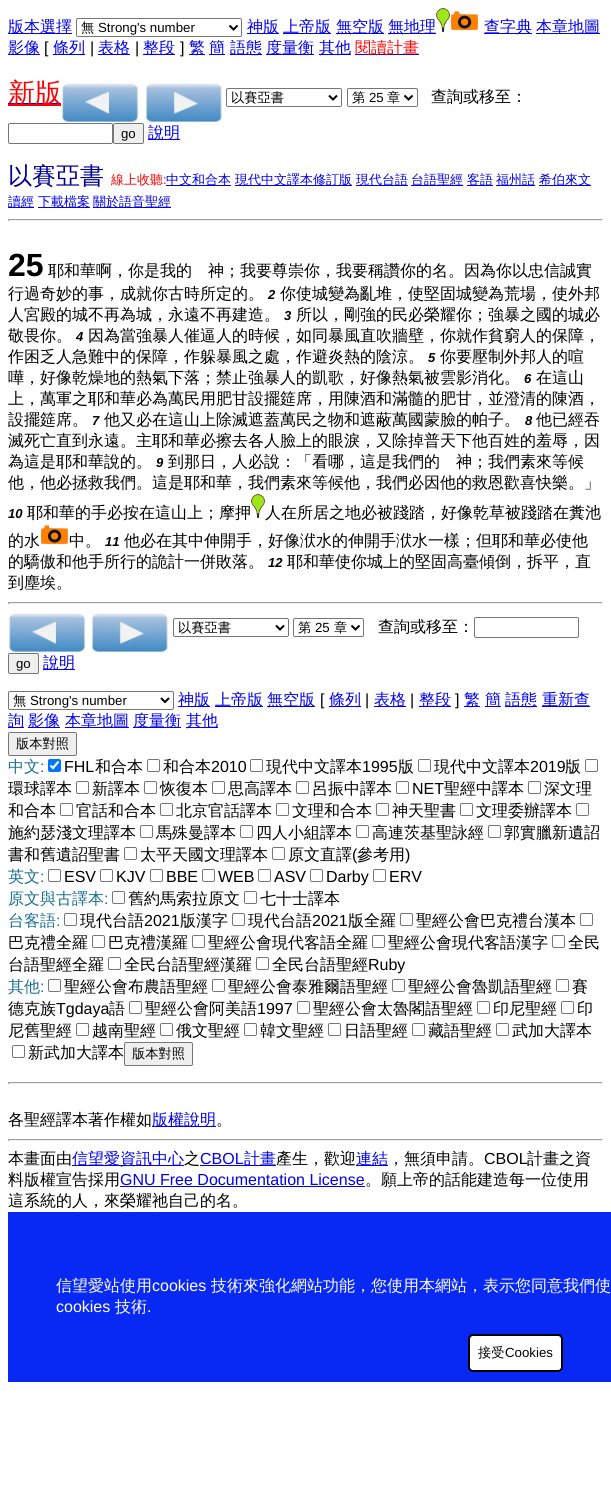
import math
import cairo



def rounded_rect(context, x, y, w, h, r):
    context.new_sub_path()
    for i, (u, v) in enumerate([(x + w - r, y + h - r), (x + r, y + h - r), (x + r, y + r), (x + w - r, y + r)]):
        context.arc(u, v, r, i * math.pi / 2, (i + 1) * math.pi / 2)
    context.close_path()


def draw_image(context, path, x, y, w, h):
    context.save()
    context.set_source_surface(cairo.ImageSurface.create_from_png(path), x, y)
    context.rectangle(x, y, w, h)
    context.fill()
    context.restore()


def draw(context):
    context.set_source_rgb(1, 1, 1)
    context.paint()
    context.set_source_rgb(0, 0, 238 / 255)
    context.rectangle(8, 33, 64, 1)
    context.fill()
    rounded_rect(context, 76.5, 18.5, 165, 18, 1.5)
    context.set_source_rgb(118 / 255, 118 / 255, 118 / 255)
    context.set_line_width(1)
    context.stroke()
    context.new_path()
    context.move_to(229.5, 25.5)
    context.line_to(233.5, 29.5)
    context.line_to(237.5, 25.5)
    context.set_source_rgb(0, 0, 0)
    context.set_line_width(2)
    context.stroke()
    context.set_source_rgb(0, 0, 238 / 255)
    context.rectangle(247, 33, 32, 1)
    context.fill()
    context.rectangle(283, 33, 48, 1)
    context.fill()
    context.rectangle(336, 33, 48, 1)
    context.fill()
    context.rectangle(388, 33, 48, 1)
    context.fill()
    draw_image(context, "images/1.png", 436, 8, 14, 24)
    draw_image(context, "images/2.png", 451, 11, 27, 20)
    context.rectangle(484, 33, 48, 1)
    context.fill()
    context.rectangle(536, 33, 64, 1)
    context.fill()
    context.rectangle(8, 54, 32, 1)
    context.fill()
    context.rectangle(53, 54, 32, 1)
    context.fill()
    context.rectangle(98, 54, 32, 1)
    context.fill()
    context.rectangle(143, 54, 32, 1)
    context.fill()
    context.rectangle(189, 54, 16, 1)
    context.fill()
    context.rectangle(209, 54, 16, 1)
    context.fill()
    context.rectangle(230, 54, 32, 1)
    context.fill()
    context.rectangle(266, 54, 48, 1)
    context.fill()
    context.rectangle(319, 54, 32, 1)
    context.fill()
    context.rectangle(355, 54, 64, 1)
    context.fill()
    context.set_source_rgb(1, 0, 0)
    context.rectangle(8, 104, 53, 2)
    context.fill()
    context.set_source_rgb(0, 0, 238 / 255)
    context.rectangle(8, 103, 53, 1)
    context.fill()
    draw_image(context, "images/3.png", 61, 83, 78, 40)
    draw_image(context, "images/4.png", 144, 83, 78, 40)
    rounded_rect(context, 226.5, 88.5, 115, 18, 1.5)
    context.set_source_rgb(118 / 255, 118 / 255, 118 / 255)
    context.set_line_width(1)
    context.stroke()
    context.new_path()
    context.move_to(329, 95.5)
    context.line_to(333, 99.5)
    context.line_to(337, 95.5)
    context.set_source_rgb(0, 0, 0)
    context.set_line_width(2)
    context.stroke()
    rounded_rect(context, 347.5, 88.5, 70, 18, 1.5)
    context.set_source_rgb(118 / 255, 118 / 255, 118 / 255)
    context.set_line_width(1)
    context.stroke()
    context.new_path()
    context.move_to(404.5, 95.5)
    context.line_to(408.5, 99.5)
    context.line_to(412.5, 95.5)
    context.set_source_rgb(0, 0, 0)
    context.set_line_width(2)
    context.stroke()
    rounded_rect(context, 8.5, 123.5, 104, 20, 1.5)
    context.set_source_rgb(118 / 255, 118 / 255, 118 / 255)
    context.set_line_width(1)
    context.stroke()
    context.set_source_rgb(239 / 255, 239 / 255, 239 / 255)
    rounded_rect(context, 113.5, 123.5, 30, 20, 1.5)
    context.fill_preserve()
    context.set_source_rgb(118 / 255, 118 / 255, 118 / 255)
    context.stroke()
    context.set_source_rgb(0, 0, 238 / 255)
    context.rectangle(148, 139, 32, 1)
    context.fill()
    context.rectangle(166, 185, 65, 1)
    context.fill()
    context.rectangle(235, 185, 117, 1)
    context.fill()
    context.rectangle(356, 185, 52, 1)
    context.fill()
    context.rectangle(411, 185, 52, 1)
    context.fill()
    context.rectangle(467, 185, 26, 1)
    context.fill()
    context.rectangle(496, 185, 39, 1)
    context.fill()
    context.rectangle(539, 185, 52, 1)
    context.fill()
    context.rectangle(8, 207, 26, 1)
    context.fill()
    context.rectangle(38, 207, 52, 1)
    context.fill()
    context.rectangle(93, 207, 78, 1)
    context.fill()
    context.set_source_rgb(159 / 255, 159 / 255, 159 / 255)
    context.rectangle(8, 219, 595, 1)
    context.fill()
    context.set_source_rgb(238 / 255, 238 / 255, 238 / 255)
    context.rectangle(602, 219, 1, 2)
    context.fill()
    context.rectangle(8, 220, 595, 1)
    context.fill()
    context.set_source_rgb(159 / 255, 159 / 255, 159 / 255)
    context.rectangle(8, 219, 1, 2)
    context.fill()
    draw_image(context, "images/1.png", 251, 494, 14, 24)
    draw_image(context, "images/2.png", 41, 525, 27, 20)
    context.rectangle(8, 602, 595, 1)
    context.fill()
    context.set_source_rgb(238 / 255, 238 / 255, 238 / 255)
    context.rectangle(602, 602, 1, 2)
    context.fill()
    context.rectangle(8, 603, 595, 1)
    context.fill()
    context.set_source_rgb(159 / 255, 159 / 255, 159 / 255)
    context.rectangle(8, 602, 1, 2)
    context.fill()
    draw_image(context, "images/3.png", 8, 613, 78, 40)
    draw_image(context, "images/4.png", 90, 613, 78, 40)
    rounded_rect(context, 173.5, 618.5, 115, 18, 1.5)
    context.set_source_rgb(118 / 255, 118 / 255, 118 / 255)
    context.stroke()
    context.new_path()
    context.move_to(276, 625.5)
    context.line_to(280, 629.5)
    context.line_to(284, 625.5)
    context.set_source_rgb(0, 0, 0)
    context.set_line_width(2)
    context.stroke()
    rounded_rect(context, 293.5, 618.5, 70, 18, 1.5)
    context.set_source_rgb(118 / 255, 118 / 255, 118 / 255)
    context.set_line_width(1)
    context.stroke()
    context.new_path()
    context.move_to(351.5, 625.5)
    context.line_to(355.5, 629.5)
    context.line_to(359.5, 625.5)
    context.set_source_rgb(0, 0, 0)
    context.set_line_width(2)
    context.stroke()
    rounded_rect(context, 474.5, 617.5, 104, 20, 1.5)
    context.set_source_rgb(118 / 255, 118 / 255, 118 / 255)
    context.set_line_width(1)
    context.stroke()
    context.set_source_rgb(239 / 255, 239 / 255, 239 / 255)
    rounded_rect(context, 8.5, 653.5, 30, 20, 1.5)
    context.fill_preserve()
    context.set_source_rgb(118 / 255, 118 / 255, 118 / 255)
    context.stroke()
    context.set_source_rgb(0, 0, 238 / 255)
    context.rectangle(43, 669, 32, 1)
    context.fill()
    rounded_rect(context, 8.5, 691.5, 165, 18, 1.5)
    context.set_source_rgb(118 / 255, 118 / 255, 118 / 255)
    context.stroke()
    context.new_path()
    context.move_to(161, 698)
    context.line_to(165, 702)
    context.line_to(169, 698)
    context.set_source_rgb(0, 0, 0)
    context.set_line_width(2)
    context.stroke()
    context.set_source_rgb(0, 0, 238 / 255)
    context.rectangle(178, 706, 32, 1)
    context.fill()
    context.rectangle(215, 706, 48, 1)
    context.fill()
    context.rectangle(267, 706, 48, 1)
    context.fill()
    context.rectangle(329, 706, 32, 1)
    context.fill()
    context.rectangle(374, 706, 32, 1)
    context.fill()
    context.rectangle(419, 706, 32, 1)
    context.fill()
    context.rectangle(464, 706, 16, 1)
    context.fill()
    context.rectangle(485, 706, 16, 1)
    context.fill()
    context.rectangle(505, 706, 32, 1)
    context.fill()
    context.rectangle(542, 706, 48, 1)
    context.fill()
    context.rectangle(8, 727, 16, 1)
    context.fill()
    context.rectangle(28, 727, 32, 1)
    context.fill()
    context.rectangle(65, 727, 64, 1)
    context.fill()
    context.rectangle(133, 727, 48, 1)
    context.fill()
    context.rectangle(186, 727, 32, 1)
    context.fill()
    context.set_source_rgb(239 / 255, 239 / 255, 239 / 255)
    rounded_rect(context, 8.5, 732.5, 68, 23, 1.5)
    context.fill_preserve()
    context.set_source_rgb(118 / 255, 118 / 255, 118 / 255)
    context.set_line_width(1)
    context.stroke()
    context.set_source_rgb(0, 117 / 255, 1)
    rounded_rect(context, 48, 759, 13, 13, 2)
    context.fill()
    context.new_path()
    context.move_to(50.5, 765.5)
    context.line_to(53, 768)
    context.line_to(58.5, 761.5)
    context.set_source_rgb(1, 1, 1)
    context.set_line_width(2.1)
    context.stroke()
    rounded_rect(context, 147.5, 759.5, 12, 12, 1.5)
    context.set_source_rgb(118 / 255, 118 / 255, 118 / 255)
    context.set_line_width(1)
    context.stroke()
    rounded_rect(context, 250.5, 759.5, 12, 12, 1.5)
    context.stroke()
    rounded_rect(context, 418.5, 759.5, 12, 12, 1.5)
    context.stroke()
    rounded_rect(context, 585.5, 759.5, 12, 12, 1.5)
    context.stroke()
    rounded_rect(context, 76.5, 781.5, 12, 12, 1.5)
    context.stroke()
    rounded_rect(context, 144.5, 781.5, 12, 12, 1.5)
    context.stroke()
    rounded_rect(context, 212.5, 781.5, 12, 12, 1.5)
    context.stroke()
    rounded_rect(context, 296.5, 781.5, 12, 12, 1.5)
    context.stroke()
    rounded_rect(context, 396.5, 781.5, 12, 12, 1.5)
    context.stroke()
    rounded_rect(context, 528.5, 781.5, 12, 12, 1.5)
    context.stroke()
    rounded_rect(context, 60.5, 803.5, 12, 12, 1.5)
    context.stroke()
    rounded_rect(context, 160.5, 803.5, 12, 12, 1.5)
    context.stroke()
    rounded_rect(context, 276.5, 803.5, 12, 12, 1.5)
    context.stroke()
    rounded_rect(context, 376.5, 803.5, 12, 12, 1.5)
    context.stroke()
    rounded_rect(context, 460.5, 803.5, 12, 12, 1.5)
    context.stroke()
    rounded_rect(context, 576.5, 803.5, 12, 12, 1.5)
    context.stroke()
    rounded_rect(context, 140.5, 825.5, 12, 12, 1.5)
    context.stroke()
    rounded_rect(context, 240.5, 825.5, 12, 12, 1.5)
    context.stroke()
    rounded_rect(context, 356.5, 825.5, 12, 12, 1.5)
    context.stroke()
    rounded_rect(context, 488.5, 825.5, 12, 12, 1.5)
    context.stroke()
    rounded_rect(context, 124.5, 847.5, 12, 12, 1.5)
    context.stroke()
    rounded_rect(context, 272.5, 847.5, 12, 12, 1.5)
    context.stroke()
    rounded_rect(context, 48.5, 869.5, 12, 12, 1.5)
    context.stroke()
    rounded_rect(context, 100.5, 869.5, 12, 12, 1.5)
    context.stroke()
    rounded_rect(context, 150.5, 869.5, 12, 12, 1.5)
    context.stroke()
    rounded_rect(context, 202.5, 869.5, 12, 12, 1.5)
    context.stroke()
    rounded_rect(context, 258.5, 869.5, 12, 12, 1.5)
    context.stroke()
    rounded_rect(context, 310.5, 869.5, 12, 12, 1.5)
    context.stroke()
    rounded_rect(context, 373.5, 869.5, 12, 12, 1.5)
    context.stroke()
    rounded_rect(context, 112.5, 891.5, 12, 12, 1.5)
    context.stroke()
    rounded_rect(context, 244.5, 891.5, 12, 12, 1.5)
    context.stroke()
    rounded_rect(context, 64.5, 913.5, 12, 12, 1.5)
    context.stroke()
    rounded_rect(context, 232.5, 913.5, 12, 12, 1.5)
    context.stroke()
    rounded_rect(context, 400.5, 913.5, 12, 12, 1.5)
    context.stroke()
    rounded_rect(context, 580.5, 913.5, 12, 12, 1.5)
    context.stroke()
    rounded_rect(context, 92.5, 935.5, 12, 12, 1.5)
    context.stroke()
    rounded_rect(context, 192.5, 935.5, 12, 12, 1.5)
    context.stroke()
    rounded_rect(context, 372.5, 935.5, 12, 12, 1.5)
    context.stroke()
    rounded_rect(context, 552.5, 935.5, 12, 12, 1.5)
    context.stroke()
    rounded_rect(context, 108.5, 957.5, 12, 12, 1.5)
    context.stroke()
    rounded_rect(context, 256.5, 957.5, 12, 12, 1.5)
    context.stroke()
    rounded_rect(context, 48.5, 979.5, 12, 12, 1.5)
    context.stroke()
    rounded_rect(context, 212.5, 979.5, 12, 12, 1.5)
    context.stroke()
    rounded_rect(context, 392.5, 979.5, 12, 12, 1.5)
    context.stroke()
    rounded_rect(context, 556.5, 979.5, 12, 12, 1.5)
    context.stroke()
    rounded_rect(context, 129.5, 1001.5, 12, 12, 1.5)
    context.stroke()
    rounded_rect(context, 297.5, 1001.5, 12, 12, 1.5)
    context.stroke()
    rounded_rect(context, 477.5, 1001.5, 12, 12, 1.5)
    context.stroke()
    rounded_rect(context, 561.5, 1001.5, 12, 12, 1.5)
    context.stroke()
    rounded_rect(context, 76.5, 1023.5, 12, 12, 1.5)
    context.stroke()
    rounded_rect(context, 160.5, 1023.5, 12, 12, 1.5)
    context.stroke()
    rounded_rect(context, 244.5, 1023.5, 12, 12, 1.5)
    context.stroke()
    rounded_rect(context, 328.5, 1023.5, 12, 12, 1.5)
    context.stroke()
    rounded_rect(context, 412.5, 1023.5, 12, 12, 1.5)
    context.stroke()
    rounded_rect(context, 496.5, 1023.5, 12, 12, 1.5)
    context.stroke()
    rounded_rect(context, 12.5, 1045.5, 12, 12, 1.5)
    context.stroke()
    context.set_source_rgb(239 / 255, 239 / 255, 239 / 255)
    rounded_rect(context, 124.5, 1042.5, 68, 23, 1.5)
    context.fill_preserve()
    context.set_source_rgb(118 / 255, 118 / 255, 118 / 255)
    context.stroke()
    context.set_source_rgb(159 / 255, 159 / 255, 159 / 255)
    context.rectangle(8, 1082, 595, 1)
    context.fill()
    context.set_source_rgb(238 / 255, 238 / 255, 238 / 255)
    context.rectangle(602, 1082, 1, 2)
    context.fill()
    context.rectangle(8, 1083, 595, 1)
    context.fill()
    context.set_source_rgb(159 / 255, 159 / 255, 159 / 255)
    context.rectangle(8, 1082, 1, 2)
    context.fill()
    context.set_source_rgb(0, 0, 238 / 255)
    context.rectangle(152, 1126, 64, 1)
    context.fill()
    context.set_source_rgb(159 / 255, 159 / 255, 159 / 255)
    context.rectangle(8, 1139, 595, 1)
    context.fill()
    context.set_source_rgb(238 / 255, 238 / 255, 238 / 255)
    context.rectangle(602, 1139, 1, 2)
    context.fill()
    context.rectangle(8, 1140, 595, 1)
    context.fill()
    context.set_source_rgb(159 / 255, 159 / 255, 159 / 255)
    context.rectangle(8, 1139, 1, 2)
    context.fill()
    context.set_source_rgb(0, 0, 238 / 255)
    context.rectangle(72, 1165, 112, 1)
    context.fill()
    context.rectangle(200, 1165, 76, 1)
    context.fill()
    context.rectangle(356, 1165, 32, 1)
    context.fill()
    context.rectangle(120, 1186, 245, 1)
    context.fill()
    context.set_source_rgb(8 / 255, 40 / 255, 243 / 255)
    context.rectangle(8, 1212, 603, 170)
    context.fill()
    context.set_source_rgb(1, 1, 1)
    rounded_rect(context, 469, 1335, 93, 36, 4)
    context.fill_preserve()
    context.set_source_rgb(0, 0, 0)
    context.set_line_width(2)
    context.stroke()
    context.select_font_face("WenQuanYi Zen Hei Medium")
    context.set_font_size(16)
    context.set_source_rgb(0, 0, 238 / 255)
    context.move_to(8, 32)
    context.show_text("版本選擇")
    context.set_font_size(13.25)
    context.set_source_rgb(0, 0, 0)
    context.move_to(81, 32)
    context.show_text("無")
    context.select_font_face("Liberation Sans")
    context.move_to(98, 32)
    context.show_text("Strong's number")
    context.select_font_face("WenQuanYi Zen Hei Medium")
    context.set_font_size(16)
    context.set_source_rgb(0, 0, 238 / 255)
    context.move_to(247, 32)
    context.show_text("神版")
    context.move_to(283, 32)
    context.show_text("上帝版")
    context.move_to(336, 32)
    context.show_text("無空版")
    context.move_to(388, 32)
    context.show_text("無地理")
    context.move_to(484, 32)
    context.show_text("查字典")
    context.move_to(536, 32)
    context.show_text("本章地圖")
    context.move_to(8, 53)
    context.show_text("影像")
    context.select_font_face("Liberation Sans")
    context.set_source_rgb(0, 0, 0)
    context.move_to(44, 53)
    context.show_text("[")
    context.select_font_face("WenQuanYi Zen Hei Medium")
    context.set_source_rgb(0, 0, 238 / 255)
    context.move_to(53, 53)
    context.show_text("條列")
    context.select_font_face("Liberation Sans")
    context.set_source_rgb(0, 0, 0)
    context.move_to(90, 53)
    context.show_text("|")
    context.select_font_face("WenQuanYi Zen Hei Medium")
    context.set_source_rgb(0, 0, 238 / 255)
    context.move_to(98, 53)
    context.show_text("表格")
    context.select_font_face("Liberation Sans")
    context.set_source_rgb(0, 0, 0)
    context.move_to(135, 53)
    context.show_text("|")
    context.select_font_face("WenQuanYi Zen Hei Medium")
    context.set_source_rgb(0, 0, 238 / 255)
    context.move_to(143, 53)
    context.show_text("整段")
    context.select_font_face("Liberation Sans")
    context.set_source_rgb(0, 0, 0)
    context.move_to(180, 53)
    context.show_text("]")
    context.select_font_face("WenQuanYi Zen Hei Medium")
    context.set_source_rgb(0, 0, 238 / 255)
    context.move_to(189, 53)
    context.show_text("繁")
    context.move_to(209, 53)
    context.show_text("簡")
    context.move_to(230, 53)
    context.show_text("語態")
    context.move_to(266, 53)
    context.show_text("度量衡")
    context.move_to(319, 53)
    context.show_text("其他")
    context.set_source_rgb(1, 0, 0)
    context.move_to(355, 53)
    context.show_text("閱讀計畫")
    context.set_font_size(27)
    context.move_to(8, 102)
    context.show_text("新版")
    context.set_font_size(13.25)
    context.set_source_rgb(0, 0, 0)
    context.move_to(231, 102)
    context.show_text("以賽亞書")
    context.move_to(352, 102)
    context.show_text("第")
    context.select_font_face("Liberation Sans")
    context.move_to(369, 102)
    context.show_text("25")
    context.select_font_face("WenQuanYi Zen Hei Medium")
    context.move_to(387, 102)
    context.show_text("章")
    context.set_font_size(16)
    context.move_to(431, 102)
    context.show_text("查詢或移至：")
    context.select_font_face("Liberation Sans")
    context.set_font_size(13.25)
    context.move_to(121, 138)
    context.show_text("go")
    context.select_font_face("WenQuanYi Zen Hei Medium")
    context.set_font_size(16)
    context.set_source_rgb(0, 0, 238 / 255)
    context.move_to(148, 138)
    context.show_text("說明")
    context.set_font_size(24)
    context.set_source_rgb(0, 0, 144 / 255)
    context.move_to(8, 184)
    context.show_text("以賽亞書")
    context.set_font_size(13)
    context.set_source_rgb(1, 0, 0)
    context.move_to(111, 184)
    context.show_text("線上收聽")
    context.select_font_face("Liberation Sans")
    context.move_to(163, 184)
    context.show_text(":")
    context.select_font_face("WenQuanYi Zen Hei Medium")
    context.set_source_rgb(0, 0, 238 / 255)
    context.move_to(166, 184)
    context.show_text("中文和合本")
    context.move_to(235, 184)
    context.show_text("現代中文譯本修訂版")
    context.move_to(356, 184)
    context.show_text("現代台語")
    context.move_to(411, 184)
    context.show_text("台語聖經")
    context.move_to(467, 184)
    context.show_text("客語")
    context.move_to(496, 184)
    context.show_text("福州話")
    context.move_to(539, 184)
    context.show_text("希伯來文")
    context.move_to(8, 206)
    context.show_text("讀經")
    context.move_to(38, 206)
    context.show_text("下載檔案")
    context.move_to(93, 206)
    context.show_text("關於語音聖經")
    context.select_font_face("Liberation Sans", cairo.FontSlant.NORMAL, cairo.FontWeight.BOLD)
    context.set_font_size(32)
    context.set_source_rgb(0, 0, 0)
    context.move_to(8, 276)
    context.show_text("25")
    context.select_font_face("WenQuanYi Zen Hei Medium")
    context.set_font_size(16)
    context.move_to(48, 276)
    context.show_text("耶和華啊，你是我的　神；我要尊崇你，我要稱讚你的名。因為你以忠信誠實")
    context.move_to(8, 299)
    context.show_text("行過奇妙的事，成就你古時所定的。")
    context.select_font_face("Liberation Sans", cairo.FontSlant.ITALIC, cairo.FontWeight.BOLD)
    context.set_font_size(13)
    context.move_to(268, 299)
    context.show_text("2")
    context.select_font_face("WenQuanYi Zen Hei Medium")
    context.set_font_size(16)
    context.move_to(280, 299)
    context.show_text("你使城變為亂堆，使堅固城變為荒場，使外邦")
    context.move_to(8, 320)
    context.show_text("人宮殿的城不再為城，永遠不再建造。")
    context.select_font_face("Liberation Sans", cairo.FontSlant.ITALIC, cairo.FontWeight.BOLD)
    context.set_font_size(13)
    context.move_to(284, 320)
    context.show_text("3")
    context.select_font_face("WenQuanYi Zen Hei Medium")
    context.set_font_size(16)
    context.move_to(296, 320)
    context.show_text("所以，剛強的民必榮耀你；強暴之國的城必")
    context.move_to(8, 341)
    context.show_text("敬畏你。")
    context.select_font_face("Liberation Sans", cairo.FontSlant.ITALIC, cairo.FontWeight.BOLD)
    context.set_font_size(13)
    context.move_to(76, 341)
    context.show_text("4")
    context.select_font_face("WenQuanYi Zen Hei Medium")
    context.set_font_size(16)
    context.move_to(88, 341)
    context.show_text("因為當強暴人催逼人的時候，如同暴風直吹牆壁，你就作貧窮人的保障，")
    context.move_to(8, 362)
    context.show_text("作困乏人急難中的保障，作躲暴風之處，作避炎熱的陰涼。")
    context.select_font_face("Liberation Sans", cairo.FontSlant.ITALIC, cairo.FontWeight.BOLD)
    context.set_font_size(13)
    context.move_to(428, 362)
    context.show_text("5")
    context.select_font_face("WenQuanYi Zen Hei Medium")
    context.set_font_size(16)
    context.move_to(440, 362)
    context.show_text("你要壓制外邦人的喧")
    context.move_to(8, 383)
    context.show_text("嘩，好像乾燥地的熱氣下落；禁止強暴人的凱歌，好像熱氣被雲影消化。")
    context.select_font_face("Liberation Sans", cairo.FontSlant.ITALIC, cairo.FontWeight.BOLD)
    context.set_font_size(13)
    context.move_to(524, 383)
    context.show_text("6")
    context.select_font_face("WenQuanYi Zen Hei Medium")
    context.set_font_size(16)
    context.move_to(536, 383)
    context.show_text("在這山")
    context.move_to(8, 404)
    context.show_text("上，萬軍之耶和華必為萬民用肥甘設擺筵席，用陳酒和滿髓的肥甘，並澄清的陳酒，")
    context.move_to(8, 425)
    context.show_text("設擺筵席。")
    context.select_font_face("Liberation Sans", cairo.FontSlant.ITALIC, cairo.FontWeight.BOLD)
    context.set_font_size(13)
    context.move_to(92, 425)
    context.show_text("7")
    context.select_font_face("WenQuanYi Zen Hei Medium")
    context.set_font_size(16)
    context.move_to(104, 425)
    context.show_text("他又必在這山上除滅遮蓋萬民之物和遮蔽萬國蒙臉的帕子。")
    context.select_font_face("Liberation Sans", cairo.FontSlant.ITALIC, cairo.FontWeight.BOLD)
    context.set_font_size(13)
    context.move_to(525, 425)
    context.show_text("8")
    context.select_font_face("WenQuanYi Zen Hei Medium")
    context.set_font_size(16)
    context.move_to(536, 425)
    context.show_text("他已經吞")
    context.move_to(8, 446)
    context.show_text("滅死亡直到永遠。主耶和華必擦去各人臉上的眼淚，又除掉普天下他百姓的羞辱，因")
    context.move_to(8, 467)
    context.show_text("為這是耶和華說的。")
    context.select_font_face("Liberation Sans", cairo.FontSlant.ITALIC, cairo.FontWeight.BOLD)
    context.set_font_size(13)
    context.move_to(156, 467)
    context.show_text("9")
    context.select_font_face("WenQuanYi Zen Hei Medium")
    context.set_font_size(16)
    context.move_to(168, 467)
    context.show_text("到那日，人必說：「看哪，這是我們的　神；我們素來等候")
    context.move_to(8, 488)
    context.show_text("他，他必拯救我們。這是耶和華，我們素來等候他，我們必因他的救恩歡喜快樂。」")
    context.select_font_face("Liberation Sans", cairo.FontSlant.ITALIC, cairo.FontWeight.BOLD)
    context.set_font_size(13)
    context.move_to(8, 518)
    context.show_text("10")
    context.select_font_face("WenQuanYi Zen Hei Medium")
    context.set_font_size(16)
    context.move_to(27, 518)
    context.show_text("耶和華的手必按在這山上；摩押")
    context.move_to(265, 518)
    context.show_text("人在所居之地必被踐踏，好像乾草被踐踏在糞池")
    context.move_to(8, 546)
    context.show_text("的水")
    context.move_to(69, 546)
    context.show_text("中。")
    context.select_font_face("Liberation Sans", cairo.FontSlant.ITALIC, cairo.FontWeight.BOLD)
    context.set_font_size(13)
    context.move_to(105, 546)
    context.show_text("11")
    context.select_font_face("WenQuanYi Zen Hei Medium")
    context.set_font_size(16)
    context.move_to(124, 546)
    context.show_text("他必在其中伸開手，好像洑水的伸開手洑水一樣；但耶和華必使他")
    context.move_to(8, 567)
    context.show_text("的驕傲和他手所行的詭計一併敗落。")
    context.select_font_face("Liberation Sans", cairo.FontSlant.ITALIC, cairo.FontWeight.BOLD)
    context.set_font_size(13)
    context.move_to(268, 567)
    context.show_text("12")
    context.select_font_face("WenQuanYi Zen Hei Medium")
    context.set_font_size(16)
    context.move_to(287, 567)
    context.show_text("耶和華使你城上的堅固高臺傾倒，拆平，直")
    context.move_to(8, 588)
    context.show_text("到塵埃。")
    context.set_font_size(13.25)
    context.move_to(178, 632)
    context.show_text("以賽亞書")
    context.move_to(298, 632)
    context.show_text("第")
    context.select_font_face("Liberation Sans")
    context.move_to(315, 632)
    context.show_text("25")
    context.select_font_face("WenQuanYi Zen Hei Medium")
    context.move_to(334, 632)
    context.show_text("章")
    context.set_font_size(16)
    context.move_to(378, 632)
    context.show_text("查詢或移至：")
    context.select_font_face("Liberation Sans")
    context.set_font_size(13.25)
    context.move_to(16, 668)
    context.show_text("go")
    context.select_font_face("WenQuanYi Zen Hei Medium")
    context.set_font_size(16)
    context.set_source_rgb(0, 0, 238 / 255)
    context.move_to(43, 668)
    context.show_text("說明")
    context.set_font_size(13.25)
    context.set_source_rgb(0, 0, 0)
    context.move_to(13, 705)
    context.show_text("無")
    context.select_font_face("Liberation Sans")
    context.move_to(30, 705)
    context.show_text("Strong's number")
    context.select_font_face("WenQuanYi Zen Hei Medium")
    context.set_font_size(16)
    context.set_source_rgb(0, 0, 238 / 255)
    context.move_to(178, 705)
    context.show_text("神版")
    context.move_to(215, 705)
    context.show_text("上帝版")
    context.move_to(267, 705)
    context.show_text("無空版")
    context.select_font_face("Liberation Sans")
    context.set_source_rgb(0, 0, 0)
    context.move_to(320, 705)
    context.show_text("[")
    context.select_font_face("WenQuanYi Zen Hei Medium")
    context.set_source_rgb(0, 0, 238 / 255)
    context.move_to(329, 705)
    context.show_text("條列")
    context.select_font_face("Liberation Sans")
    context.set_source_rgb(0, 0, 0)
    context.move_to(365, 705)
    context.show_text("|")
    context.select_font_face("WenQuanYi Zen Hei Medium")
    context.set_source_rgb(0, 0, 238 / 255)
    context.move_to(374, 705)
    context.show_text("表格")
    context.select_font_face("Liberation Sans")
    context.set_source_rgb(0, 0, 0)
    context.move_to(410, 705)
    context.show_text("|")
    context.select_font_face("WenQuanYi Zen Hei Medium")
    context.set_source_rgb(0, 0, 238 / 255)
    context.move_to(419, 705)
    context.show_text("整段")
    context.select_font_face("Liberation Sans")
    context.set_source_rgb(0, 0, 0)
    context.move_to(455, 705)
    context.show_text("]")
    context.select_font_face("WenQuanYi Zen Hei Medium")
    context.set_source_rgb(0, 0, 238 / 255)
    context.move_to(464, 705)
    context.show_text("繁")
    context.move_to(485, 705)
    context.show_text("簡")
    context.move_to(505, 705)
    context.show_text("語態")
    context.move_to(542, 705)
    context.show_text("重新查")
    context.move_to(8, 726)
    context.show_text("詢")
    context.move_to(28, 726)
    context.show_text("影像")
    context.move_to(65, 726)
    context.show_text("本章地圖")
    context.move_to(133, 726)
    context.show_text("度量衡")
    context.move_to(186, 726)
    context.show_text("其他")
    context.set_font_size(13.25)
    context.set_source_rgb(0, 0, 0)
    context.move_to(16, 748)
    context.show_text("版本對照")
    context.set_font_size(16)
    context.set_source_rgb(25 / 255, 111 / 255, 146 / 255)
    context.move_to(8, 772)
    context.show_text("中文")
    context.select_font_face("Liberation Sans")
    context.move_to(40, 772)
    context.show_text(":")
    context.set_source_rgb(0, 0, 0)
    context.move_to(64, 772)
    context.show_text("FHL")
    context.select_font_face("WenQuanYi Zen Hei Medium")
    context.move_to(95, 772)
    context.show_text("和合本")
    context.move_to(163, 772)
    context.show_text("和合本")
    context.select_font_face("Liberation Sans")
    context.move_to(211, 772)
    context.show_text("2010")
    context.select_font_face("WenQuanYi Zen Hei Medium")
    context.move_to(266, 772)
    context.show_text("現代中文譯本")
    context.select_font_face("Liberation Sans")
    context.move_to(362, 772)
    context.show_text("1995")
    context.select_font_face("WenQuanYi Zen Hei Medium")
    context.move_to(398, 772)
    context.show_text("版")
    context.move_to(434, 772)
    context.show_text("現代中文譯本")
    context.select_font_face("Liberation Sans")
    context.move_to(530, 772)
    context.show_text("2019")
    context.select_font_face("WenQuanYi Zen Hei Medium")
    context.move_to(565, 772)
    context.show_text("版")
    context.move_to(8, 794)
    context.show_text("環球譯本")
    context.move_to(92, 794)
    context.show_text("新譯本")
    context.move_to(160, 794)
    context.show_text("恢復本")
    context.move_to(228, 794)
    context.show_text("思高譯本")
    context.move_to(312, 794)
    context.show_text("呂振中譯本")
    context.select_font_face("Liberation Sans")
    context.move_to(412, 794)
    context.show_text("NET")
    context.select_font_face("WenQuanYi Zen Hei Medium")
    context.move_to(444, 794)
    context.show_text("聖經中譯本")
    context.move_to(544, 794)
    context.show_text("深文理")
    context.move_to(8, 816)
    context.show_text("和合本")
    context.move_to(76, 816)
    context.show_text("官話和合本")
    context.move_to(176, 816)
    context.show_text("北京官話譯本")
    context.move_to(292, 816)
    context.show_text("文理和合本")
    context.move_to(392, 816)
    context.show_text("神天聖書")
    context.move_to(476, 816)
    context.show_text("文理委辦譯本")
    context.move_to(8, 838)
    context.show_text("施約瑟淺文理譯本")
    context.move_to(156, 838)
    context.show_text("馬殊曼譯本")
    context.move_to(256, 838)
    context.show_text("四人小組譯本")
    context.move_to(372, 838)
    context.show_text("高連茨基聖詠經")
    context.move_to(504, 838)
    context.show_text("郭實臘新遺詔")
    context.move_to(8, 860)
    context.show_text("書和舊遺詔聖書")
    context.move_to(140, 860)
    context.show_text("太平天國文理譯本")
    context.move_to(288, 860)
    context.show_text("原文直譯")
    context.select_font_face("Liberation Sans")
    context.move_to(352, 860)
    context.show_text("(")
    context.select_font_face("WenQuanYi Zen Hei Medium")
    context.move_to(357, 860)
    context.show_text("參考用")
    context.select_font_face("Liberation Sans")
    context.move_to(405, 860)
    context.show_text(")")
    context.select_font_face("WenQuanYi Zen Hei Medium")
    context.set_source_rgb(25 / 255, 111 / 255, 146 / 255)
    context.move_to(8, 882)
    context.show_text("英文")
    context.select_font_face("Liberation Sans")
    context.move_to(40, 882)
    context.show_text(":")
    context.set_source_rgb(0, 0, 0)
    context.move_to(64, 882)
    context.show_text("ESV")
    context.move_to(116, 882)
    context.show_text("KJV")
    context.move_to(166, 882)
    context.show_text("BBE")
    context.move_to(218, 882)
    context.show_text("WEB")
    context.move_to(274, 882)
    context.show_text("ASV")
    context.move_to(326, 882)
    context.show_text("Darby")
    context.move_to(389, 882)
    context.show_text("ERV")
    context.select_font_face("WenQuanYi Zen Hei Medium")
    context.set_source_rgb(25 / 255, 111 / 255, 146 / 255)
    context.move_to(8, 904)
    context.show_text("原文與古譯本")
    context.select_font_face("Liberation Sans")
    context.move_to(104, 904)
    context.show_text(":")
    context.select_font_face("WenQuanYi Zen Hei Medium")
    context.set_source_rgb(0, 0, 0)
    context.move_to(128, 904)
    context.show_text("舊約馬索拉原文")
    context.move_to(260, 904)
    context.show_text("七十士譯本")
    context.set_source_rgb(25 / 255, 111 / 255, 146 / 255)
    context.move_to(8, 926)
    context.show_text("台客語")
    context.select_font_face("Liberation Sans")
    context.move_to(56, 926)
    context.show_text(":")
    context.select_font_face("WenQuanYi Zen Hei Medium")
    context.set_source_rgb(0, 0, 0)
    context.move_to(80, 926)
    context.show_text("現代台語")
    context.select_font_face("Liberation Sans")
    context.move_to(144, 926)
    context.show_text("2021")
    context.select_font_face("WenQuanYi Zen Hei Medium")
    context.move_to(180, 926)
    context.show_text("版漢字")
    context.move_to(248, 926)
    context.show_text("現代台語")
    context.select_font_face("Liberation Sans")
    context.move_to(312, 926)
    context.show_text("2021")
    context.select_font_face("WenQuanYi Zen Hei Medium")
    context.move_to(348, 926)
    context.show_text("版全羅")
    context.move_to(416, 926)
    context.show_text("聖經公會巴克禮台漢本")
    context.move_to(8, 948)
    context.show_text("巴克禮全羅")
    context.move_to(108, 948)
    context.show_text("巴克禮漢羅")
    context.move_to(208, 948)
    context.show_text("聖經公會現代客語全羅")
    context.move_to(388, 948)
    context.show_text("聖經公會現代客語漢字")
    context.move_to(568, 948)
    context.show_text("全民")
    context.move_to(8, 970)
    context.show_text("台語聖經全羅")
    context.move_to(124, 970)
    context.show_text("全民台語聖經漢羅")
    context.move_to(272, 970)
    context.show_text("全民台語聖經")
    context.select_font_face("Liberation Sans")
    context.move_to(368, 970)
    context.show_text("Ruby")
    context.select_font_face("WenQuanYi Zen Hei Medium")
    context.set_source_rgb(25 / 255, 111 / 255, 146 / 255)
    context.move_to(8, 992)
    context.show_text("其他")
    context.select_font_face("Liberation Sans")
    context.move_to(40, 992)
    context.show_text(":")
    context.select_font_face("WenQuanYi Zen Hei Medium")
    context.set_source_rgb(0, 0, 0)
    context.move_to(64, 992)
    context.show_text("聖經公會布農語聖經")
    context.move_to(228, 992)
    context.show_text("聖經公會泰雅爾語聖經")
    context.move_to(408, 992)
    context.show_text("聖經公會魯凱語聖經")
    context.move_to(572, 992)
    context.show_text("賽")
    context.move_to(8, 1014)
    context.show_text("德克族")
    context.select_font_face("Liberation Sans")
    context.move_to(56, 1014)
    context.show_text("Tgdaya")
    context.select_font_face("WenQuanYi Zen Hei Medium")
    context.move_to(109, 1014)
    context.show_text("語")
    context.move_to(145, 1014)
    context.show_text("聖經公會阿美語")
    context.select_font_face("Liberation Sans")
    context.move_to(257, 1014)
    context.show_text("1997")
    context.select_font_face("WenQuanYi Zen Hei Medium")
    context.move_to(313, 1014)
    context.show_text("聖經公會太魯閣語聖經")
    context.move_to(493, 1014)
    context.show_text("印尼聖經")
    context.move_to(577, 1014)
    context.show_text("印")
    context.move_to(8, 1036)
    context.show_text("尼舊聖經")
    context.move_to(92, 1036)
    context.show_text("越南聖經")
    context.move_to(176, 1036)
    context.show_text("俄文聖經")
    context.move_to(260, 1036)
    context.show_text("韓文聖經")
    context.move_to(344, 1036)
    context.show_text("日語聖經")
    context.move_to(428, 1036)
    context.show_text("藏語聖經")
    context.move_to(512, 1036)
    context.show_text("武加大譯本")
    context.move_to(28, 1058)
    context.show_text("新武加大譯本")
    context.set_font_size(13.25)
    context.move_to(132, 1058)
    context.show_text("版本對照")
    context.set_font_size(16)
    context.move_to(8, 1125)
    context.show_text("各聖經譯本著作權如")
    context.set_source_rgb(0, 0, 238 / 255)
    context.move_to(152, 1125)
    context.show_text("版權說明")
    context.set_source_rgb(0, 0, 0)
    context.move_to(216, 1125)
    context.show_text("。")
    context.move_to(8, 1164)
    context.show_text("本畫面由")
    context.set_source_rgb(0, 0, 238 / 255)
    context.move_to(72, 1164)
    context.show_text("信望愛資訊中心")
    context.set_source_rgb(0, 0, 0)
    context.move_to(184, 1164)
    context.show_text("之")
    context.select_font_face("Liberation Sans")
    context.set_source_rgb(0, 0, 238 / 255)
    context.move_to(200, 1164)
    context.show_text("CBOL")
    context.select_font_face("WenQuanYi Zen Hei Medium")
    context.move_to(244, 1164)
    context.show_text("計畫")
    context.set_source_rgb(0, 0, 0)
    context.move_to(276, 1164)
    context.show_text("產生，歡迎")
    context.set_source_rgb(0, 0, 238 / 255)
    context.move_to(356, 1164)
    context.show_text("連結")
    context.set_source_rgb(0, 0, 0)
    context.move_to(388, 1164)
    context.show_text("，無須申請。")
    context.select_font_face("Liberation Sans")
    context.move_to(484, 1164)
    context.show_text("CBOL")
    context.select_font_face("WenQuanYi Zen Hei Medium")
    context.move_to(527, 1164)
    context.show_text("計畫之資")
    context.move_to(8, 1185)
    context.show_text("料版權宣告採用")
    context.select_font_face("Liberation Sans")
    context.set_source_rgb(0, 0, 238 / 255)
    context.move_to(120, 1185)
    context.show_text("GNU Free Documentation License")
    context.select_font_face("WenQuanYi Zen Hei Medium")
    context.set_source_rgb(0, 0, 0)
    context.move_to(365, 1185)
    context.show_text("。願上帝的話能建造每一位使用")
    context.move_to(8, 1206)
    context.show_text("這系統的人，來榮耀祂自己的名。")
    context.set_source_rgb(1, 1, 1)
    context.move_to(56, 1291)
    context.show_text("信望愛站使用")
    context.select_font_face("Liberation Sans")
    context.move_to(152, 1291)
    context.show_text("cookies")
    context.select_font_face("WenQuanYi Zen Hei Medium")
    context.move_to(211, 1291)
    context.show_text("技術來強化網站功能，您使用本網站，表示您同意我們使")
    context.select_font_face("Liberation Sans")
    context.move_to(56, 1312)
    context.show_text("cookies")
    context.select_font_face("WenQuanYi Zen Hei Medium")
    context.move_to(115, 1312)
    context.show_text("技術")
    context.select_font_face("Liberation Sans")
    context.move_to(147, 1312)
    context.show_text(".")
    context.select_font_face("WenQuanYi Zen Hei Medium")
    context.set_font_size(13.25)
    context.set_source_rgb(0, 0, 0)
    context.move_to(478, 1357)
    context.show_text("接受")
    context.select_font_face("Liberation Sans")
    context.move_to(505, 1357)
    context.show_text("Cookies")


surface = cairo.ImageSurface(cairo.Format.RGB24, 611, 1495)
context = cairo.Context(surface)
options = cairo.FontOptions()
options.set_hint_metrics(cairo.HintMetrics.OFF)
options.set_hint_style(cairo.HintStyle.NONE)
context.set_font_options(options)
context.set_miter_limit(4)
draw(context)
surface.write_to_png("out.png")
